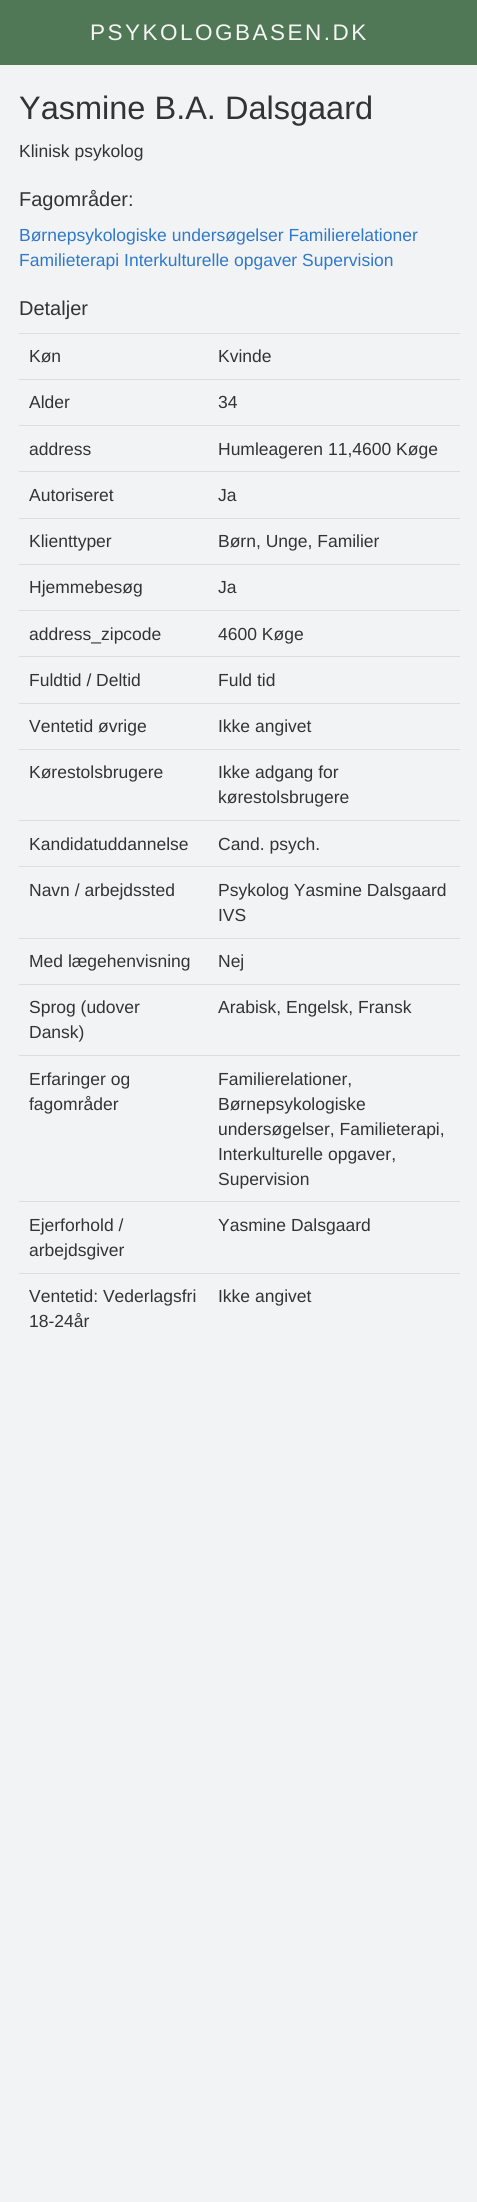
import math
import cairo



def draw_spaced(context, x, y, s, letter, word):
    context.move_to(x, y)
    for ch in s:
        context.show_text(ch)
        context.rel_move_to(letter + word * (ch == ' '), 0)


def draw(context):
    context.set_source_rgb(242 / 255, 243 / 255, 244 / 255)
    context.paint()
    context.set_source_rgb(81 / 255, 120 / 255, 86 / 255)
    context.rectangle(0, 0, 477, 65)
    context.fill()
    context.set_source_rgb(221 / 255, 221 / 255, 221 / 255)
    context.rectangle(19, 333, 441, 1)
    context.fill()
    context.rectangle(19, 379, 441, 1)
    context.fill()
    context.rectangle(19, 425, 441, 1)
    context.fill()
    context.rectangle(19, 471, 441, 1)
    context.fill()
    context.rectangle(19, 518, 441, 1)
    context.fill()
    context.rectangle(19, 564, 441, 1)
    context.fill()
    context.rectangle(19, 610, 441, 1)
    context.fill()
    context.rectangle(19, 656, 441, 1)
    context.fill()
    context.rectangle(19, 703, 441, 1)
    context.fill()
    context.rectangle(19, 749, 441, 1)
    context.fill()
    context.rectangle(19, 820, 441, 1)
    context.fill()
    context.rectangle(19, 866, 441, 1)
    context.fill()
    context.rectangle(19, 938, 441, 1)
    context.fill()
    context.rectangle(19, 984, 441, 1)
    context.fill()
    context.rectangle(19, 1055, 441, 1)
    context.fill()
    context.rectangle(19, 1201, 441, 1)
    context.fill()
    context.rectangle(19, 1273, 441, 1)
    context.fill()
    context.select_font_face("Liberation Sans")
    context.set_font_size(22.5)
    context.set_source_rgb(245 / 255, 245 / 255, 245 / 255)
    draw_spaced(context, 90, 40, "PSYKOLOGBASEN.DK", 2.5, 0)
    context.set_font_size(32.5)
    context.set_source_rgb(51 / 255, 51 / 255, 51 / 255)
    context.move_to(19, 119)
    context.show_text("Yasmine B.A. Dalsgaard")
    context.set_font_size(17.5)
    context.move_to(19, 157)
    context.show_text("Klinisk psykolog")
    context.set_font_size(20)
    context.move_to(19, 206)
    context.show_text("Fagområder:")
    context.set_font_size(17.5)
    context.set_source_rgb(48 / 255, 120 / 255, 202 / 255)
    context.move_to(19, 241)
    context.show_text("Børnepsykologiske undersøgelser Familierelationer")
    context.move_to(19, 266)
    context.show_text("Familieterapi Interkulturelle opgaver Supervision")
    context.set_font_size(20)
    context.set_source_rgb(51 / 255, 51 / 255, 51 / 255)
    context.move_to(19, 315)
    context.show_text("Detaljer")
    context.set_font_size(17.5)
    context.move_to(29, 362)
    context.show_text("Køn")
    context.move_to(218, 362)
    context.show_text("Kvinde")
    context.move_to(29, 408)
    context.show_text("Alder")
    context.move_to(218, 408)
    context.show_text("34")
    context.move_to(29, 455)
    context.show_text("address")
    context.move_to(218, 455)
    context.show_text("Humleageren 11,4600 Køge")
    context.move_to(29, 501)
    context.show_text("Autoriseret")
    context.move_to(218, 501)
    context.show_text("Ja")
    context.move_to(29, 547)
    context.show_text("Klienttyper")
    context.move_to(218, 547)
    context.show_text("Børn, Unge, Familier")
    context.move_to(29, 593)
    context.show_text("Hjemmebesøg")
    context.move_to(218, 593)
    context.show_text("Ja")
    context.move_to(29, 640)
    context.show_text("address_zipcode")
    context.move_to(218, 640)
    context.show_text("4600 Køge")
    context.move_to(29, 686)
    context.show_text("Fuldtid / Deltid")
    context.move_to(218, 686)
    context.show_text("Fuld tid")
    context.move_to(29, 732)
    context.show_text("Ventetid øvrige")
    context.move_to(218, 732)
    context.show_text("Ikke angivet")
    context.move_to(29, 778)
    context.show_text("Kørestolsbrugere")
    context.move_to(218, 778)
    context.show_text("Ikke adgang for")
    context.move_to(218, 803)
    context.show_text("kørestolsbrugere")
    context.move_to(29, 850)
    context.show_text("Kandidatuddannelse")
    context.move_to(218, 850)
    context.show_text("Cand. psych.")
    context.move_to(29, 896)
    context.show_text("Navn / arbejdssted")
    context.move_to(218, 896)
    context.show_text("Psykolog Yasmine Dalsgaard")
    context.move_to(218, 921)
    context.show_text("IVS")
    context.move_to(29, 967)
    context.show_text("Med lægehenvisning")
    context.move_to(218, 967)
    context.show_text("Nej")
    context.move_to(29, 1013)
    context.show_text("Sprog (udover")
    context.move_to(29, 1038)
    context.show_text("Dansk)")
    context.move_to(218, 1013)
    context.show_text("Arabisk, Engelsk, Fransk")
    context.move_to(29, 1085)
    context.show_text("Erfaringer og")
    context.move_to(29, 1110)
    context.show_text("fagområder")
    context.move_to(218, 1085)
    context.show_text("Familierelationer,")
    context.move_to(218, 1110)
    context.show_text("Børnepsykologiske")
    context.move_to(218, 1135)
    context.show_text("undersøgelser, Familieterapi,")
    context.move_to(218, 1160)
    context.show_text("Interkulturelle opgaver,")
    context.move_to(218, 1185)
    context.show_text("Supervision")
    context.move_to(29, 1231)
    context.show_text("Ejerforhold /")
    context.move_to(29, 1256)
    context.show_text("arbejdsgiver")
    context.move_to(218, 1231)
    context.show_text("Yasmine Dalsgaard")
    context.move_to(29, 1302)
    context.show_text("Ventetid: Vederlagsfri")
    context.move_to(29, 1327)
    context.show_text("18-24år")
    context.move_to(218, 1302)
    context.show_text("Ikke angivet")


surface = cairo.ImageSurface(cairo.Format.RGB24, 477, 2202)
context = cairo.Context(surface)
options = cairo.FontOptions()
options.set_hint_metrics(cairo.HintMetrics.OFF)
options.set_hint_style(cairo.HintStyle.NONE)
context.set_font_options(options)
context.set_miter_limit(4)
draw(context)
surface.write_to_png("out.png")
